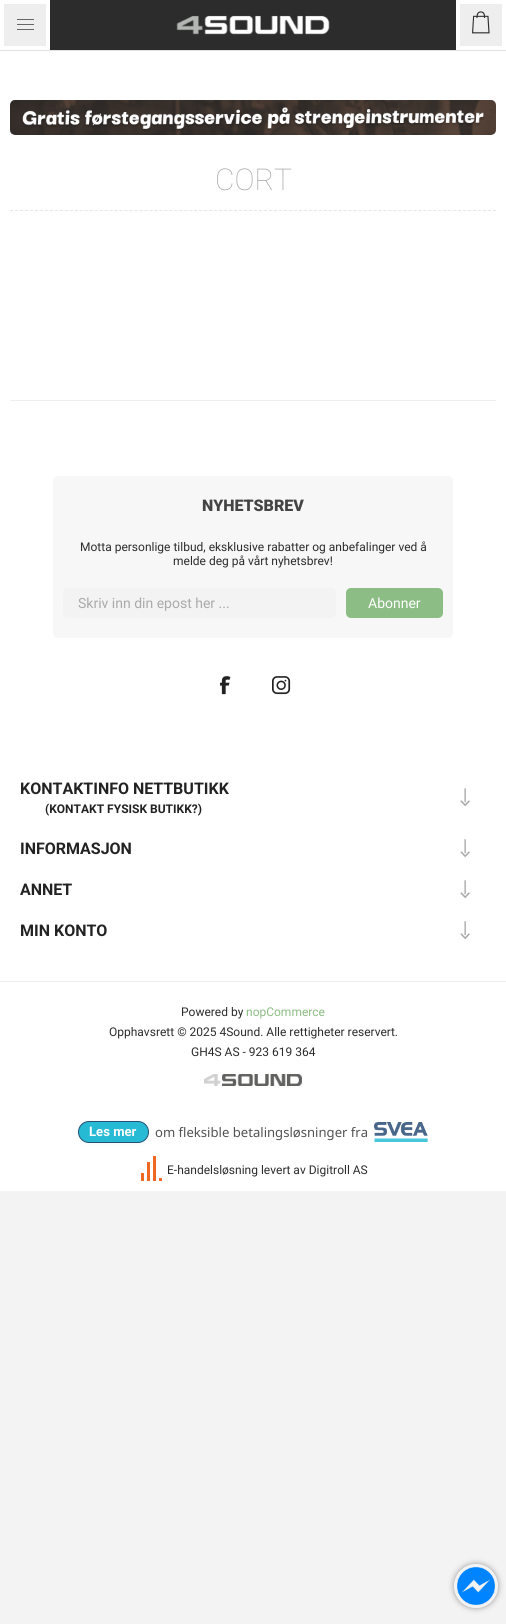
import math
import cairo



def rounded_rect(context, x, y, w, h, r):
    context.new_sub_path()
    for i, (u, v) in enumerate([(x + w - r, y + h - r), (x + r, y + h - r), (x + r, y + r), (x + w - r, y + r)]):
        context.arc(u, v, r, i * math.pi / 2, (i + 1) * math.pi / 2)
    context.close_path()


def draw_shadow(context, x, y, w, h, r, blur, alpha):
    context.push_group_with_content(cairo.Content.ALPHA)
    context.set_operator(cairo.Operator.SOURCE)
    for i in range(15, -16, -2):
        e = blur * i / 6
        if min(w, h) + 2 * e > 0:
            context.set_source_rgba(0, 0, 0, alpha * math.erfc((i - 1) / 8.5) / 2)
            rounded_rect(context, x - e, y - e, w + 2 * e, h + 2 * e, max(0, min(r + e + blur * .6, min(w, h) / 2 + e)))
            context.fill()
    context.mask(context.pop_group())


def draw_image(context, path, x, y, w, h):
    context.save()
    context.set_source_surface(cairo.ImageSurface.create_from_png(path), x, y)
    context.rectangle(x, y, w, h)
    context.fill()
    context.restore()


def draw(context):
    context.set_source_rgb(243 / 255, 243 / 255, 243 / 255)
    context.paint()
    context.set_source_rgb(1, 1, 1)
    context.rectangle(0, 51, 506, 1140)
    context.fill()
    context.set_source_rgb(227 / 255, 227 / 255, 227 / 255)
    context.rectangle(0, 50, 506, 1)
    context.fill()
    context.set_source_rgb(44 / 255, 44 / 255, 44 / 255)
    context.rectangle(50, 0, 406, 50)
    context.fill()
    draw_image(context, "images/1.png", 176, 15, 154, 20)
    context.set_source_rgb(238 / 255, 238 / 255, 238 / 255)
    context.rectangle(2, 2, 46, 46)
    context.fill_preserve()
    context.set_source_rgb(1, 1, 1)
    context.set_line_width(4)
    context.stroke()
    context.set_source_rgb(102 / 255, 102 / 255, 102 / 255)
    context.rectangle(17, 19, 17, 1)
    context.fill()
    context.rectangle(17, 24, 17, 1)
    context.fill()
    context.rectangle(17, 29, 17, 1)
    context.fill()
    context.set_source_rgb(238 / 255, 238 / 255, 238 / 255)
    context.rectangle(458, 2, 46, 46)
    context.fill_preserve()
    context.set_source_rgb(1, 1, 1)
    context.stroke()
    draw_image(context, "images/2.png", 472, 11, 18, 23)
    draw_image(context, "images/3.png", 10, 100, 486, 35)
    context.new_path()
    context.move_to(10, 210.5)
    context.line_to(496, 210.5)
    context.set_source_rgb(230 / 255, 230 / 255, 230 / 255)
    context.set_line_width(1)
    context.set_dash([3, 1.98])
    context.stroke()
    context.set_source_rgb(238 / 255, 238 / 255, 238 / 255)
    context.rectangle(10, 400, 486, 1)
    context.fill()
    context.set_source_rgb(247 / 255, 247 / 255, 247 / 255)
    rounded_rect(context, 53, 476, 400, 162, 5)
    context.fill()
    context.set_source_rgb(243 / 255, 243 / 255, 243 / 255)
    rounded_rect(context, 63, 588, 273, 30, 5)
    context.fill()
    context.set_source_rgb(140 / 255, 189 / 255, 132 / 255)
    rounded_rect(context, 346, 588, 97, 30, 5)
    context.fill()
    draw_image(context, "images/4.png", 220, 676, 11, 19)
    draw_image(context, "images/5.png", 272, 676, 19, 19)
    draw_image(context, "images/6.png", 460, 788, 10, 19)
    draw_image(context, "images/6.png", 460, 839, 10, 19)
    draw_image(context, "images/6.png", 460, 880, 10, 19)
    draw_image(context, "images/6.png", 460, 921, 10, 19)
    context.set_source_rgb(238 / 255, 238 / 255, 238 / 255)
    context.rectangle(0, 981, 506, 1)
    context.fill()
    draw_image(context, "images/7.png", 204, 1074, 98, 12)
    context.set_source_rgb(38 / 255, 186 / 255, 213 / 255)
    draw_shadow(context, 78, 1122, 71, 22, 11, 2, 0.07)
    context.set_source_rgb(38 / 255, 186 / 255, 213 / 255)
    rounded_rect(context, 78.5, 1121.5, 70, 21, 10.5)
    context.fill_preserve()
    context.set_source_rgb(38 / 255, 81 / 255, 116 / 255)
    context.set_dash([])
    context.stroke()
    draw_image(context, "images/8.png", 374, 1122, 54, 20)
    context.set_source_rgb(239 / 255, 104 / 255, 33 / 255)
    context.rectangle(141, 1173, 3, 8)
    context.fill()
    context.rectangle(147, 1162, 3, 19)
    context.fill()
    context.rectangle(153, 1156, 3, 25)
    context.fill()
    context.rectangle(159, 1178, 3, 3)
    context.fill()
    context.save()
    context.set_fill_rule(cairo.FillRule.EVEN_ODD)
    context.new_path()
    context.move_to(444, 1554)
    context.line_to(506, 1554)
    context.line_to(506, 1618)
    context.line_to(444, 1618)
    context.close_path()
    context.move_to(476, 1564)
    context.curve_to(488, 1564, 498, 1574, 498, 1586)
    context.curve_to(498, 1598, 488, 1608, 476, 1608)
    context.curve_to(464, 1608, 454, 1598, 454, 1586)
    context.curve_to(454, 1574, 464, 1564, 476, 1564)
    context.close_path()
    context.clip()
    context.set_source_rgb(153 / 255, 153 / 255, 153 / 255)
    draw_shadow(context, 454, 1564, 44, 44, 22, 3, 1)
    context.restore()
    draw_image(context, "images/9.png", 457, 1567, 38, 38)
    context.select_font_face("Roboto Thin")
    context.set_font_size(30)
    context.set_source_rgb(170 / 255, 170 / 255, 170 / 255)
    context.move_to(215, 190)
    context.show_text("CORT")
    context.select_font_face("Roboto Black")
    context.set_font_size(16)
    context.set_source_rgb(68 / 255, 68 / 255, 68 / 255)
    context.move_to(202, 511)
    context.show_text("NYHETSBREV")
    context.select_font_face("Roboto")
    context.set_font_size(12)
    context.set_source_rgb(44 / 255, 44 / 255, 44 / 255)
    context.move_to(80, 551)
    context.show_text("Motta personlige tilbud, eksklusive rabatter og anbefalinger ved å")
    context.move_to(173, 565)
    context.show_text("melde deg på vårt nyhetsbrev!")
    context.set_font_size(14)
    context.set_source_rgb(170 / 255, 170 / 255, 170 / 255)
    context.move_to(78, 608)
    context.show_text("Skriv inn din epost her ...")
    context.set_source_rgb(1, 1, 1)
    context.move_to(368, 608)
    context.show_text("Abonner")
    context.select_font_face("Roboto", cairo.FontSlant.NORMAL, cairo.FontWeight.BOLD)
    context.set_font_size(16)
    context.set_source_rgb(34 / 255, 34 / 255, 34 / 255)
    context.move_to(20, 794)
    context.show_text("KONTAKTINFO NETTBUTIKK")
    context.set_font_size(12)
    context.move_to(45, 813)
    context.show_text("(KONTAKT FYSISK BUTIKK?)")
    context.set_font_size(16)
    context.move_to(20, 854)
    context.show_text("INFORMASJON")
    context.move_to(20, 895)
    context.show_text("ANNET")
    context.move_to(20, 936)
    context.show_text("MIN KONTO")
    context.select_font_face("Roboto")
    context.set_font_size(12)
    context.set_source_rgb(44 / 255, 44 / 255, 44 / 255)
    context.move_to(181, 1016)
    context.show_text("Powered by")
    context.set_source_rgb(140 / 255, 189 / 255, 132 / 255)
    context.move_to(246, 1016)
    context.show_text("nopCommerce")
    context.set_source_rgb(44 / 255, 44 / 255, 44 / 255)
    context.move_to(109, 1036)
    context.show_text("Opphavsrett © 2025 4Sound. Alle rettigheter reservert.")
    context.move_to(191, 1056)
    context.show_text("GH4S AS - 923 619 364")
    context.select_font_face("Roboto", cairo.FontSlant.NORMAL, cairo.FontWeight.BOLD)
    context.set_font_size(13.1)
    context.set_source_rgb(1, 1, 1)
    context.move_to(89, 1136)
    context.show_text("Les mer")
    context.select_font_face("Noto Sans")
    context.set_source_rgb(82 / 255, 82 / 255, 82 / 255)
    context.move_to(155, 1137)
    context.show_text("om fleksible betalingsløsninger fra")
    context.select_font_face("Roboto")
    context.set_font_size(12)
    context.set_source_rgb(44 / 255, 44 / 255, 44 / 255)
    context.move_to(167, 1174)
    context.show_text("E-handelsløsning levert av Digitroll AS")


surface = cairo.ImageSurface(cairo.Format.RGB24, 506, 1624)
context = cairo.Context(surface)
options = cairo.FontOptions()
options.set_hint_metrics(cairo.HintMetrics.OFF)
options.set_hint_style(cairo.HintStyle.NONE)
context.set_font_options(options)
context.set_miter_limit(4)
draw(context)
surface.write_to_png("out.png")
